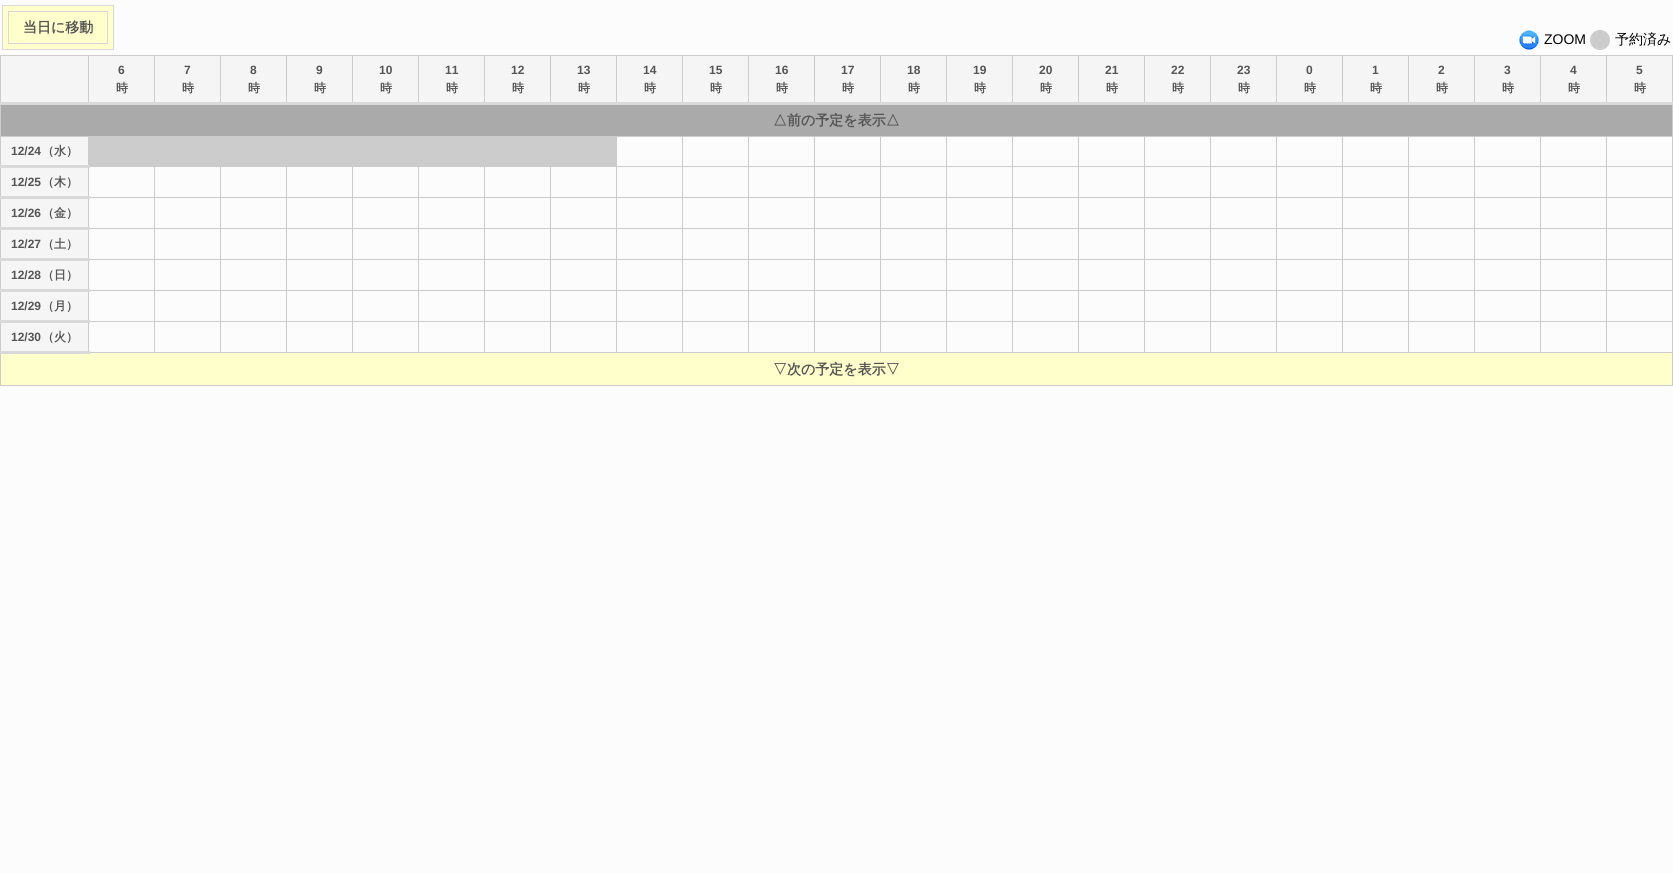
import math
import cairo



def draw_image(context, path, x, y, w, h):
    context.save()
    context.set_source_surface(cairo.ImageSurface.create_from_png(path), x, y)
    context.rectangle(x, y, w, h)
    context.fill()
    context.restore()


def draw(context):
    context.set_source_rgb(252 / 255, 252 / 255, 252 / 255)
    context.paint()
    context.set_source_rgb(1, 1, 204 / 255)
    context.rectangle(2.5, 5.5, 111, 44)
    context.fill_preserve()
    context.set_source_rgb(217 / 255, 217 / 255, 217 / 255)
    context.set_line_width(1)
    context.stroke()
    context.rectangle(8.5, 11.5, 99, 32)
    context.stroke()
    draw_image(context, "images/1.png", 1519, 30, 20, 20)
    draw_image(context, "images/2.png", 1590, 30, 20, 20)
    context.set_source_rgb(245 / 255, 245 / 255, 245 / 255)
    context.rectangle(1, 56, 87, 46)
    context.fill()
    context.set_source_rgb(204 / 255, 204 / 255, 204 / 255)
    context.rectangle(1606, 55, 67, 1)
    context.fill()
    context.rectangle(1606, 55, 1, 49)
    context.fill()
    context.rectangle(1540, 55, 67, 1)
    context.fill()
    context.rectangle(1540, 55, 1, 49)
    context.fill()
    context.rectangle(1474, 55, 67, 1)
    context.fill()
    context.rectangle(1474, 55, 1, 49)
    context.fill()
    context.rectangle(1408, 55, 67, 1)
    context.fill()
    context.rectangle(1408, 55, 1, 49)
    context.fill()
    context.rectangle(1342, 55, 67, 1)
    context.fill()
    context.rectangle(1342, 55, 1, 49)
    context.fill()
    context.rectangle(1276, 55, 67, 1)
    context.fill()
    context.rectangle(1276, 55, 1, 49)
    context.fill()
    context.rectangle(1210, 55, 67, 1)
    context.fill()
    context.rectangle(1210, 55, 1, 49)
    context.fill()
    context.rectangle(1144, 55, 67, 1)
    context.fill()
    context.rectangle(1144, 55, 1, 49)
    context.fill()
    context.rectangle(1078, 55, 67, 1)
    context.fill()
    context.rectangle(1078, 55, 1, 49)
    context.fill()
    context.rectangle(1012, 55, 67, 1)
    context.fill()
    context.rectangle(1012, 55, 1, 49)
    context.fill()
    context.rectangle(946, 55, 67, 1)
    context.fill()
    context.rectangle(946, 55, 1, 49)
    context.fill()
    context.rectangle(880, 55, 67, 1)
    context.fill()
    context.rectangle(880, 55, 1, 49)
    context.fill()
    context.rectangle(814, 55, 67, 1)
    context.fill()
    context.rectangle(814, 55, 1, 49)
    context.fill()
    context.rectangle(748, 55, 67, 1)
    context.fill()
    context.rectangle(748, 55, 1, 49)
    context.fill()
    context.rectangle(682, 55, 67, 1)
    context.fill()
    context.rectangle(682, 55, 1, 49)
    context.fill()
    context.rectangle(616, 55, 67, 1)
    context.fill()
    context.rectangle(616, 55, 1, 49)
    context.fill()
    context.rectangle(550, 55, 67, 1)
    context.fill()
    context.rectangle(550, 55, 1, 49)
    context.fill()
    context.rectangle(484, 55, 67, 1)
    context.fill()
    context.rectangle(484, 55, 1, 49)
    context.fill()
    context.rectangle(418, 55, 67, 1)
    context.fill()
    context.rectangle(418, 55, 1, 49)
    context.fill()
    context.rectangle(352, 55, 67, 1)
    context.fill()
    context.rectangle(352, 55, 1, 49)
    context.fill()
    context.rectangle(286, 55, 67, 1)
    context.fill()
    context.rectangle(286, 55, 1, 49)
    context.fill()
    context.rectangle(220, 55, 67, 1)
    context.fill()
    context.rectangle(220, 55, 1, 49)
    context.fill()
    context.rectangle(154, 55, 67, 1)
    context.fill()
    context.rectangle(154, 55, 1, 49)
    context.fill()
    context.rectangle(88, 55, 67, 1)
    context.fill()
    context.rectangle(88, 55, 1, 49)
    context.fill()
    context.rectangle(0, 55, 89, 1)
    context.fill()
    context.rectangle(1606, 136, 67, 1)
    context.fill()
    context.rectangle(1606, 166, 67, 1)
    context.fill()
    context.rectangle(1606, 197, 67, 1)
    context.fill()
    context.rectangle(1606, 228, 67, 1)
    context.fill()
    context.rectangle(1606, 259, 67, 1)
    context.fill()
    context.rectangle(1606, 290, 67, 1)
    context.fill()
    context.rectangle(1606, 321, 67, 1)
    context.fill()
    context.rectangle(90, 352, 1583, 1)
    context.fill()
    context.rectangle(1606, 321, 1, 32)
    context.fill()
    context.rectangle(1540, 321, 67, 1)
    context.fill()
    context.rectangle(1606, 290, 1, 32)
    context.fill()
    context.rectangle(1540, 290, 67, 1)
    context.fill()
    context.rectangle(1606, 259, 1, 32)
    context.fill()
    context.rectangle(1540, 259, 67, 1)
    context.fill()
    context.rectangle(1606, 228, 1, 32)
    context.fill()
    context.rectangle(1540, 228, 67, 1)
    context.fill()
    context.rectangle(1606, 197, 1, 32)
    context.fill()
    context.rectangle(1540, 197, 67, 1)
    context.fill()
    context.rectangle(1606, 166, 1, 32)
    context.fill()
    context.rectangle(1540, 166, 67, 1)
    context.fill()
    context.rectangle(1606, 136, 1, 31)
    context.fill()
    context.rectangle(1540, 136, 67, 1)
    context.fill()
    context.rectangle(1540, 321, 1, 32)
    context.fill()
    context.rectangle(1474, 321, 67, 1)
    context.fill()
    context.rectangle(1540, 290, 1, 32)
    context.fill()
    context.rectangle(1474, 290, 67, 1)
    context.fill()
    context.rectangle(1540, 259, 1, 32)
    context.fill()
    context.rectangle(1474, 259, 67, 1)
    context.fill()
    context.rectangle(1540, 228, 1, 32)
    context.fill()
    context.rectangle(1474, 228, 67, 1)
    context.fill()
    context.rectangle(1540, 197, 1, 32)
    context.fill()
    context.rectangle(1474, 197, 67, 1)
    context.fill()
    context.rectangle(1540, 166, 1, 32)
    context.fill()
    context.rectangle(1474, 166, 67, 1)
    context.fill()
    context.rectangle(1540, 136, 1, 31)
    context.fill()
    context.rectangle(1474, 136, 67, 1)
    context.fill()
    context.rectangle(1474, 321, 1, 32)
    context.fill()
    context.rectangle(1408, 321, 67, 1)
    context.fill()
    context.rectangle(1474, 290, 1, 32)
    context.fill()
    context.rectangle(1408, 290, 67, 1)
    context.fill()
    context.rectangle(1474, 259, 1, 32)
    context.fill()
    context.rectangle(1408, 259, 67, 1)
    context.fill()
    context.rectangle(1474, 228, 1, 32)
    context.fill()
    context.rectangle(1408, 228, 67, 1)
    context.fill()
    context.rectangle(1474, 197, 1, 32)
    context.fill()
    context.rectangle(1408, 197, 67, 1)
    context.fill()
    context.rectangle(1474, 166, 1, 32)
    context.fill()
    context.rectangle(1408, 166, 67, 1)
    context.fill()
    context.rectangle(1474, 136, 1, 31)
    context.fill()
    context.rectangle(1408, 136, 67, 1)
    context.fill()
    context.rectangle(1408, 321, 1, 32)
    context.fill()
    context.rectangle(1342, 321, 67, 1)
    context.fill()
    context.rectangle(1408, 290, 1, 32)
    context.fill()
    context.rectangle(1342, 290, 67, 1)
    context.fill()
    context.rectangle(1408, 259, 1, 32)
    context.fill()
    context.rectangle(1342, 259, 67, 1)
    context.fill()
    context.rectangle(1408, 228, 1, 32)
    context.fill()
    context.rectangle(1342, 228, 67, 1)
    context.fill()
    context.rectangle(1408, 197, 1, 32)
    context.fill()
    context.rectangle(1342, 197, 67, 1)
    context.fill()
    context.rectangle(1408, 166, 1, 32)
    context.fill()
    context.rectangle(1342, 166, 67, 1)
    context.fill()
    context.rectangle(1408, 136, 1, 31)
    context.fill()
    context.rectangle(1342, 136, 67, 1)
    context.fill()
    context.rectangle(1342, 321, 1, 32)
    context.fill()
    context.rectangle(1276, 321, 67, 1)
    context.fill()
    context.rectangle(1342, 290, 1, 32)
    context.fill()
    context.rectangle(1276, 290, 67, 1)
    context.fill()
    context.rectangle(1342, 259, 1, 32)
    context.fill()
    context.rectangle(1276, 259, 67, 1)
    context.fill()
    context.rectangle(1342, 228, 1, 32)
    context.fill()
    context.rectangle(1276, 228, 67, 1)
    context.fill()
    context.rectangle(1342, 197, 1, 32)
    context.fill()
    context.rectangle(1276, 197, 67, 1)
    context.fill()
    context.rectangle(1342, 166, 1, 32)
    context.fill()
    context.rectangle(1276, 166, 67, 1)
    context.fill()
    context.rectangle(1342, 136, 1, 31)
    context.fill()
    context.rectangle(1276, 136, 67, 1)
    context.fill()
    context.rectangle(1276, 321, 1, 32)
    context.fill()
    context.rectangle(1210, 321, 67, 1)
    context.fill()
    context.rectangle(1276, 290, 1, 32)
    context.fill()
    context.rectangle(1210, 290, 67, 1)
    context.fill()
    context.rectangle(1276, 259, 1, 32)
    context.fill()
    context.rectangle(1210, 259, 67, 1)
    context.fill()
    context.rectangle(1276, 228, 1, 32)
    context.fill()
    context.rectangle(1210, 228, 67, 1)
    context.fill()
    context.rectangle(1276, 197, 1, 32)
    context.fill()
    context.rectangle(1210, 197, 67, 1)
    context.fill()
    context.rectangle(1276, 166, 1, 32)
    context.fill()
    context.rectangle(1210, 166, 67, 1)
    context.fill()
    context.rectangle(1276, 136, 1, 31)
    context.fill()
    context.rectangle(1210, 136, 67, 1)
    context.fill()
    context.rectangle(1210, 321, 1, 32)
    context.fill()
    context.rectangle(1144, 321, 67, 1)
    context.fill()
    context.rectangle(1210, 290, 1, 32)
    context.fill()
    context.rectangle(1144, 290, 67, 1)
    context.fill()
    context.rectangle(1210, 259, 1, 32)
    context.fill()
    context.rectangle(1144, 259, 67, 1)
    context.fill()
    context.rectangle(1210, 228, 1, 32)
    context.fill()
    context.rectangle(1144, 228, 67, 1)
    context.fill()
    context.rectangle(1210, 197, 1, 32)
    context.fill()
    context.rectangle(1144, 197, 67, 1)
    context.fill()
    context.rectangle(1210, 166, 1, 32)
    context.fill()
    context.rectangle(1144, 166, 67, 1)
    context.fill()
    context.rectangle(1210, 136, 1, 31)
    context.fill()
    context.rectangle(1144, 136, 67, 1)
    context.fill()
    context.rectangle(1144, 321, 1, 32)
    context.fill()
    context.rectangle(1078, 321, 67, 1)
    context.fill()
    context.rectangle(1144, 290, 1, 32)
    context.fill()
    context.rectangle(1078, 290, 67, 1)
    context.fill()
    context.rectangle(1144, 259, 1, 32)
    context.fill()
    context.rectangle(1078, 259, 67, 1)
    context.fill()
    context.rectangle(1144, 228, 1, 32)
    context.fill()
    context.rectangle(1078, 228, 67, 1)
    context.fill()
    context.rectangle(1144, 197, 1, 32)
    context.fill()
    context.rectangle(1078, 197, 67, 1)
    context.fill()
    context.rectangle(1144, 166, 1, 32)
    context.fill()
    context.rectangle(1078, 166, 67, 1)
    context.fill()
    context.rectangle(1144, 136, 1, 31)
    context.fill()
    context.rectangle(1078, 136, 67, 1)
    context.fill()
    context.rectangle(1078, 321, 1, 32)
    context.fill()
    context.rectangle(1012, 321, 67, 1)
    context.fill()
    context.rectangle(1078, 290, 1, 32)
    context.fill()
    context.rectangle(1012, 290, 67, 1)
    context.fill()
    context.rectangle(1078, 259, 1, 32)
    context.fill()
    context.rectangle(1012, 259, 67, 1)
    context.fill()
    context.rectangle(1078, 228, 1, 32)
    context.fill()
    context.rectangle(1012, 228, 67, 1)
    context.fill()
    context.rectangle(1078, 197, 1, 32)
    context.fill()
    context.rectangle(1012, 197, 67, 1)
    context.fill()
    context.rectangle(1078, 166, 1, 32)
    context.fill()
    context.rectangle(1012, 166, 67, 1)
    context.fill()
    context.rectangle(1078, 136, 1, 31)
    context.fill()
    context.rectangle(1012, 136, 67, 1)
    context.fill()
    context.rectangle(1012, 321, 1, 32)
    context.fill()
    context.rectangle(946, 321, 67, 1)
    context.fill()
    context.rectangle(1012, 290, 1, 32)
    context.fill()
    context.rectangle(946, 290, 67, 1)
    context.fill()
    context.rectangle(1012, 259, 1, 32)
    context.fill()
    context.rectangle(946, 259, 67, 1)
    context.fill()
    context.rectangle(1012, 228, 1, 32)
    context.fill()
    context.rectangle(946, 228, 67, 1)
    context.fill()
    context.rectangle(1012, 197, 1, 32)
    context.fill()
    context.rectangle(946, 197, 67, 1)
    context.fill()
    context.rectangle(1012, 166, 1, 32)
    context.fill()
    context.rectangle(946, 166, 67, 1)
    context.fill()
    context.rectangle(1012, 136, 1, 31)
    context.fill()
    context.rectangle(946, 136, 67, 1)
    context.fill()
    context.rectangle(946, 321, 1, 32)
    context.fill()
    context.rectangle(880, 321, 67, 1)
    context.fill()
    context.rectangle(946, 290, 1, 32)
    context.fill()
    context.rectangle(880, 290, 67, 1)
    context.fill()
    context.rectangle(946, 259, 1, 32)
    context.fill()
    context.rectangle(880, 259, 67, 1)
    context.fill()
    context.rectangle(946, 228, 1, 32)
    context.fill()
    context.rectangle(880, 228, 67, 1)
    context.fill()
    context.rectangle(946, 197, 1, 32)
    context.fill()
    context.rectangle(880, 197, 67, 1)
    context.fill()
    context.rectangle(946, 166, 1, 32)
    context.fill()
    context.rectangle(880, 166, 67, 1)
    context.fill()
    context.rectangle(946, 136, 1, 31)
    context.fill()
    context.rectangle(880, 136, 67, 1)
    context.fill()
    context.rectangle(880, 321, 1, 32)
    context.fill()
    context.rectangle(814, 321, 67, 1)
    context.fill()
    context.rectangle(880, 290, 1, 32)
    context.fill()
    context.rectangle(814, 290, 67, 1)
    context.fill()
    context.rectangle(880, 259, 1, 32)
    context.fill()
    context.rectangle(814, 259, 67, 1)
    context.fill()
    context.rectangle(880, 228, 1, 32)
    context.fill()
    context.rectangle(814, 228, 67, 1)
    context.fill()
    context.rectangle(880, 197, 1, 32)
    context.fill()
    context.rectangle(814, 197, 67, 1)
    context.fill()
    context.rectangle(880, 166, 1, 32)
    context.fill()
    context.rectangle(814, 166, 67, 1)
    context.fill()
    context.rectangle(880, 136, 1, 31)
    context.fill()
    context.rectangle(814, 136, 67, 1)
    context.fill()
    context.rectangle(814, 321, 1, 32)
    context.fill()
    context.rectangle(748, 321, 67, 1)
    context.fill()
    context.rectangle(814, 290, 1, 32)
    context.fill()
    context.rectangle(748, 290, 67, 1)
    context.fill()
    context.rectangle(814, 259, 1, 32)
    context.fill()
    context.rectangle(748, 259, 67, 1)
    context.fill()
    context.rectangle(814, 228, 1, 32)
    context.fill()
    context.rectangle(748, 228, 67, 1)
    context.fill()
    context.rectangle(814, 197, 1, 32)
    context.fill()
    context.rectangle(748, 197, 67, 1)
    context.fill()
    context.rectangle(814, 166, 1, 32)
    context.fill()
    context.rectangle(748, 166, 67, 1)
    context.fill()
    context.rectangle(814, 136, 1, 31)
    context.fill()
    context.rectangle(748, 136, 67, 1)
    context.fill()
    context.rectangle(748, 321, 1, 32)
    context.fill()
    context.rectangle(682, 321, 67, 1)
    context.fill()
    context.rectangle(748, 290, 1, 32)
    context.fill()
    context.rectangle(682, 290, 67, 1)
    context.fill()
    context.rectangle(748, 259, 1, 32)
    context.fill()
    context.rectangle(682, 259, 67, 1)
    context.fill()
    context.rectangle(748, 228, 1, 32)
    context.fill()
    context.rectangle(682, 228, 67, 1)
    context.fill()
    context.rectangle(748, 197, 1, 32)
    context.fill()
    context.rectangle(682, 197, 67, 1)
    context.fill()
    context.rectangle(748, 166, 1, 32)
    context.fill()
    context.rectangle(682, 166, 67, 1)
    context.fill()
    context.rectangle(748, 136, 1, 31)
    context.fill()
    context.rectangle(682, 136, 67, 1)
    context.fill()
    context.rectangle(155, 137, 462, 30)
    context.fill()
    context.rectangle(682, 321, 1, 32)
    context.fill()
    context.rectangle(616, 321, 67, 1)
    context.fill()
    context.rectangle(682, 290, 1, 32)
    context.fill()
    context.rectangle(616, 290, 67, 1)
    context.fill()
    context.rectangle(682, 259, 1, 32)
    context.fill()
    context.rectangle(616, 259, 67, 1)
    context.fill()
    context.rectangle(682, 228, 1, 32)
    context.fill()
    context.rectangle(616, 228, 67, 1)
    context.fill()
    context.rectangle(682, 197, 1, 32)
    context.fill()
    context.rectangle(616, 197, 67, 1)
    context.fill()
    context.rectangle(682, 166, 1, 32)
    context.fill()
    context.rectangle(616, 166, 67, 1)
    context.fill()
    context.rectangle(682, 136, 1, 31)
    context.fill()
    context.rectangle(88, 136, 595, 1)
    context.fill()
    context.rectangle(616, 321, 1, 32)
    context.fill()
    context.rectangle(550, 321, 67, 1)
    context.fill()
    context.rectangle(616, 290, 1, 32)
    context.fill()
    context.rectangle(550, 290, 67, 1)
    context.fill()
    context.rectangle(616, 259, 1, 32)
    context.fill()
    context.rectangle(550, 259, 67, 1)
    context.fill()
    context.rectangle(616, 228, 1, 32)
    context.fill()
    context.rectangle(550, 228, 67, 1)
    context.fill()
    context.rectangle(616, 197, 1, 32)
    context.fill()
    context.rectangle(550, 197, 67, 1)
    context.fill()
    context.rectangle(550, 321, 1, 32)
    context.fill()
    context.rectangle(484, 321, 67, 1)
    context.fill()
    context.rectangle(550, 290, 1, 32)
    context.fill()
    context.rectangle(484, 290, 67, 1)
    context.fill()
    context.rectangle(550, 259, 1, 32)
    context.fill()
    context.rectangle(484, 259, 67, 1)
    context.fill()
    context.rectangle(550, 228, 1, 32)
    context.fill()
    context.rectangle(484, 228, 67, 1)
    context.fill()
    context.rectangle(550, 197, 1, 32)
    context.fill()
    context.rectangle(484, 197, 67, 1)
    context.fill()
    context.rectangle(484, 321, 1, 32)
    context.fill()
    context.rectangle(418, 321, 67, 1)
    context.fill()
    context.rectangle(484, 290, 1, 32)
    context.fill()
    context.rectangle(418, 290, 67, 1)
    context.fill()
    context.rectangle(484, 259, 1, 32)
    context.fill()
    context.rectangle(418, 259, 67, 1)
    context.fill()
    context.rectangle(484, 228, 1, 32)
    context.fill()
    context.rectangle(418, 228, 67, 1)
    context.fill()
    context.rectangle(484, 197, 1, 32)
    context.fill()
    context.rectangle(418, 197, 67, 1)
    context.fill()
    context.rectangle(418, 321, 1, 32)
    context.fill()
    context.rectangle(352, 321, 67, 1)
    context.fill()
    context.rectangle(418, 290, 1, 32)
    context.fill()
    context.rectangle(352, 290, 67, 1)
    context.fill()
    context.rectangle(418, 259, 1, 32)
    context.fill()
    context.rectangle(352, 259, 67, 1)
    context.fill()
    context.rectangle(418, 228, 1, 32)
    context.fill()
    context.rectangle(352, 228, 67, 1)
    context.fill()
    context.rectangle(418, 197, 1, 32)
    context.fill()
    context.rectangle(352, 197, 67, 1)
    context.fill()
    context.rectangle(352, 321, 1, 32)
    context.fill()
    context.rectangle(286, 321, 67, 1)
    context.fill()
    context.rectangle(352, 290, 1, 32)
    context.fill()
    context.rectangle(286, 290, 67, 1)
    context.fill()
    context.rectangle(352, 259, 1, 32)
    context.fill()
    context.rectangle(286, 259, 67, 1)
    context.fill()
    context.rectangle(352, 228, 1, 32)
    context.fill()
    context.rectangle(286, 228, 67, 1)
    context.fill()
    context.rectangle(352, 197, 1, 32)
    context.fill()
    context.rectangle(286, 197, 67, 1)
    context.fill()
    context.rectangle(286, 321, 1, 32)
    context.fill()
    context.rectangle(220, 321, 67, 1)
    context.fill()
    context.rectangle(286, 290, 1, 32)
    context.fill()
    context.rectangle(220, 290, 67, 1)
    context.fill()
    context.rectangle(286, 259, 1, 32)
    context.fill()
    context.rectangle(220, 259, 67, 1)
    context.fill()
    context.rectangle(286, 228, 1, 32)
    context.fill()
    context.rectangle(220, 228, 67, 1)
    context.fill()
    context.rectangle(286, 197, 1, 32)
    context.fill()
    context.rectangle(220, 197, 67, 1)
    context.fill()
    context.rectangle(220, 321, 1, 32)
    context.fill()
    context.rectangle(154, 321, 67, 1)
    context.fill()
    context.rectangle(220, 290, 1, 32)
    context.fill()
    context.rectangle(154, 290, 67, 1)
    context.fill()
    context.rectangle(220, 259, 1, 32)
    context.fill()
    context.rectangle(154, 259, 67, 1)
    context.fill()
    context.rectangle(220, 228, 1, 32)
    context.fill()
    context.rectangle(154, 228, 67, 1)
    context.fill()
    context.rectangle(220, 197, 1, 32)
    context.fill()
    context.rectangle(154, 197, 67, 1)
    context.fill()
    context.rectangle(154, 321, 1, 32)
    context.fill()
    context.rectangle(88, 321, 67, 1)
    context.fill()
    context.rectangle(154, 290, 1, 32)
    context.fill()
    context.rectangle(88, 290, 67, 1)
    context.fill()
    context.rectangle(154, 259, 1, 32)
    context.fill()
    context.rectangle(88, 259, 67, 1)
    context.fill()
    context.rectangle(154, 228, 1, 32)
    context.fill()
    context.rectangle(88, 228, 67, 1)
    context.fill()
    context.rectangle(154, 197, 1, 32)
    context.fill()
    context.rectangle(88, 197, 67, 1)
    context.fill()
    context.rectangle(154, 166, 1, 32)
    context.fill()
    context.rectangle(88, 166, 67, 1)
    context.fill()
    context.rectangle(88, 321, 1, 32)
    context.fill()
    context.rectangle(88, 290, 1, 32)
    context.fill()
    context.rectangle(88, 259, 1, 32)
    context.fill()
    context.rectangle(88, 228, 1, 32)
    context.fill()
    context.rectangle(88, 197, 1, 32)
    context.fill()
    context.rectangle(88, 166, 1, 32)
    context.fill()
    context.rectangle(88, 136, 1, 31)
    context.fill()
    context.rectangle(0, 136, 89, 1)
    context.fill()
    context.rectangle(1672, 352, 1, 34)
    context.fill()
    context.rectangle(0, 385, 1673, 1)
    context.fill()
    context.rectangle(0, 228, 1, 158)
    context.fill()
    context.rectangle(0, 166, 1, 63)
    context.fill()
    context.rectangle(0, 103, 1, 64)
    context.fill()
    context.rectangle(0, 55, 1, 49)
    context.fill()
    context.set_source_rgb(245 / 255, 245 / 255, 245 / 255)
    context.rectangle(89, 56, 65, 46)
    context.fill()
    context.rectangle(155, 56, 65, 46)
    context.fill()
    context.rectangle(221, 56, 65, 46)
    context.fill()
    context.rectangle(287, 56, 65, 46)
    context.fill()
    context.rectangle(353, 56, 65, 46)
    context.fill()
    context.rectangle(419, 56, 65, 46)
    context.fill()
    context.rectangle(485, 56, 65, 46)
    context.fill()
    context.rectangle(551, 56, 65, 46)
    context.fill()
    context.rectangle(617, 56, 65, 46)
    context.fill()
    context.rectangle(683, 56, 65, 46)
    context.fill()
    context.rectangle(749, 56, 65, 46)
    context.fill()
    context.rectangle(815, 56, 65, 46)
    context.fill()
    context.rectangle(881, 56, 65, 46)
    context.fill()
    context.rectangle(947, 56, 65, 46)
    context.fill()
    context.rectangle(1013, 56, 65, 46)
    context.fill()
    context.rectangle(1079, 56, 65, 46)
    context.fill()
    context.rectangle(1145, 56, 65, 46)
    context.fill()
    context.rectangle(1211, 56, 65, 46)
    context.fill()
    context.rectangle(1277, 56, 65, 46)
    context.fill()
    context.rectangle(1343, 56, 65, 46)
    context.fill()
    context.rectangle(1409, 56, 65, 46)
    context.fill()
    context.rectangle(1475, 56, 65, 46)
    context.fill()
    context.rectangle(1541, 56, 65, 46)
    context.fill()
    context.rectangle(1607, 56, 65, 46)
    context.fill()
    context.set_source_rgb(204 / 255, 204 / 255, 204 / 255)
    context.rectangle(1672, 321, 1, 32)
    context.fill()
    context.rectangle(1672, 290, 1, 32)
    context.fill()
    context.rectangle(1672, 259, 1, 32)
    context.fill()
    context.rectangle(1672, 228, 1, 32)
    context.fill()
    context.rectangle(1672, 197, 1, 32)
    context.fill()
    context.rectangle(1672, 166, 1, 32)
    context.fill()
    context.rectangle(1672, 103, 1, 64)
    context.fill()
    context.rectangle(1672, 55, 1, 49)
    context.fill()
    context.set_source_rgb(217 / 255, 217 / 255, 217 / 255)
    context.rectangle(0, 102, 1673, 3)
    context.fill()
    context.set_source_rgb(170 / 255, 170 / 255, 170 / 255)
    context.rectangle(1, 105, 1671, 31)
    context.fill()
    context.set_source_rgb(204 / 255, 204 / 255, 204 / 255)
    context.rectangle(89, 137, 66, 29)
    context.fill()
    context.set_source_rgb(245 / 255, 245 / 255, 245 / 255)
    context.rectangle(1, 137, 87, 28)
    context.fill()
    context.set_source_rgb(217 / 255, 217 / 255, 217 / 255)
    context.rectangle(0, 165, 90, 3)
    context.fill()
    context.set_source_rgb(245 / 255, 245 / 255, 245 / 255)
    context.rectangle(1, 168, 87, 28)
    context.fill()
    context.set_source_rgb(217 / 255, 217 / 255, 217 / 255)
    context.rectangle(0, 196, 90, 3)
    context.fill()
    context.set_source_rgb(204 / 255, 204 / 255, 204 / 255)
    context.rectangle(220, 166, 1, 32)
    context.fill()
    context.rectangle(286, 166, 1, 32)
    context.fill()
    context.rectangle(352, 166, 1, 32)
    context.fill()
    context.rectangle(418, 166, 1, 32)
    context.fill()
    context.rectangle(484, 166, 1, 32)
    context.fill()
    context.rectangle(550, 166, 1, 32)
    context.fill()
    context.rectangle(616, 166, 1, 32)
    context.fill()
    context.set_source_rgb(245 / 255, 245 / 255, 245 / 255)
    context.rectangle(1, 199, 87, 28)
    context.fill()
    context.set_source_rgb(217 / 255, 217 / 255, 217 / 255)
    context.rectangle(0, 227, 90, 3)
    context.fill()
    context.set_source_rgb(245 / 255, 245 / 255, 245 / 255)
    context.rectangle(1, 230, 87, 28)
    context.fill()
    context.set_source_rgb(217 / 255, 217 / 255, 217 / 255)
    context.rectangle(0, 258, 90, 3)
    context.fill()
    context.set_source_rgb(245 / 255, 245 / 255, 245 / 255)
    context.rectangle(1, 261, 87, 28)
    context.fill()
    context.set_source_rgb(217 / 255, 217 / 255, 217 / 255)
    context.rectangle(0, 289, 90, 3)
    context.fill()
    context.set_source_rgb(245 / 255, 245 / 255, 245 / 255)
    context.rectangle(1, 292, 87, 28)
    context.fill()
    context.set_source_rgb(217 / 255, 217 / 255, 217 / 255)
    context.rectangle(0, 320, 90, 3)
    context.fill()
    context.set_source_rgb(245 / 255, 245 / 255, 245 / 255)
    context.rectangle(1, 323, 87, 28)
    context.fill()
    context.set_source_rgb(1, 1, 204 / 255)
    context.rectangle(1, 353, 1671, 32)
    context.fill()
    context.set_source_rgb(217 / 255, 217 / 255, 217 / 255)
    context.rectangle(0, 351, 90, 3)
    context.fill()
    context.select_font_face("WenQuanYi Zen Hei", cairo.FontSlant.NORMAL, cairo.FontWeight.BOLD)
    context.set_font_size(14)
    context.set_source_rgb(85 / 255, 85 / 255, 85 / 255)
    context.move_to(23, 32)
    context.show_text("当日に移動")
    context.select_font_face("Liberation Sans")
    context.set_source_rgb(0, 0, 0)
    context.move_to(1544, 44)
    context.show_text("ZOOM")
    context.select_font_face("WenQuanYi Zen Hei Medium")
    context.move_to(1615, 44)
    context.show_text("予約済み")
    context.select_font_face("Liberation Sans", cairo.FontSlant.NORMAL, cairo.FontWeight.BOLD)
    context.set_font_size(12)
    context.set_source_rgb(85 / 255, 85 / 255, 85 / 255)
    context.move_to(118, 74)
    context.show_text("6")
    context.select_font_face("WenQuanYi Zen Hei", cairo.FontSlant.NORMAL, cairo.FontWeight.BOLD)
    context.move_to(116, 92)
    context.show_text("時")
    context.select_font_face("Liberation Sans", cairo.FontSlant.NORMAL, cairo.FontWeight.BOLD)
    context.move_to(184, 74)
    context.show_text("7")
    context.select_font_face("WenQuanYi Zen Hei", cairo.FontSlant.NORMAL, cairo.FontWeight.BOLD)
    context.move_to(182, 92)
    context.show_text("時")
    context.select_font_face("Liberation Sans", cairo.FontSlant.NORMAL, cairo.FontWeight.BOLD)
    context.move_to(250, 74)
    context.show_text("8")
    context.select_font_face("WenQuanYi Zen Hei", cairo.FontSlant.NORMAL, cairo.FontWeight.BOLD)
    context.move_to(248, 92)
    context.show_text("時")
    context.select_font_face("Liberation Sans", cairo.FontSlant.NORMAL, cairo.FontWeight.BOLD)
    context.move_to(316, 74)
    context.show_text("9")
    context.select_font_face("WenQuanYi Zen Hei", cairo.FontSlant.NORMAL, cairo.FontWeight.BOLD)
    context.move_to(314, 92)
    context.show_text("時")
    context.select_font_face("Liberation Sans", cairo.FontSlant.NORMAL, cairo.FontWeight.BOLD)
    context.move_to(379, 74)
    context.show_text("10")
    context.select_font_face("WenQuanYi Zen Hei", cairo.FontSlant.NORMAL, cairo.FontWeight.BOLD)
    context.move_to(380, 92)
    context.show_text("時")
    context.select_font_face("Liberation Sans", cairo.FontSlant.NORMAL, cairo.FontWeight.BOLD)
    context.move_to(445, 74)
    context.show_text("11")
    context.select_font_face("WenQuanYi Zen Hei", cairo.FontSlant.NORMAL, cairo.FontWeight.BOLD)
    context.move_to(446, 92)
    context.show_text("時")
    context.select_font_face("Liberation Sans", cairo.FontSlant.NORMAL, cairo.FontWeight.BOLD)
    context.move_to(511, 74)
    context.show_text("12")
    context.select_font_face("WenQuanYi Zen Hei", cairo.FontSlant.NORMAL, cairo.FontWeight.BOLD)
    context.move_to(512, 92)
    context.show_text("時")
    context.select_font_face("Liberation Sans", cairo.FontSlant.NORMAL, cairo.FontWeight.BOLD)
    context.move_to(577, 74)
    context.show_text("13")
    context.select_font_face("WenQuanYi Zen Hei", cairo.FontSlant.NORMAL, cairo.FontWeight.BOLD)
    context.move_to(578, 92)
    context.show_text("時")
    context.select_font_face("Liberation Sans", cairo.FontSlant.NORMAL, cairo.FontWeight.BOLD)
    context.move_to(643, 74)
    context.show_text("14")
    context.select_font_face("WenQuanYi Zen Hei", cairo.FontSlant.NORMAL, cairo.FontWeight.BOLD)
    context.move_to(644, 92)
    context.show_text("時")
    context.select_font_face("Liberation Sans", cairo.FontSlant.NORMAL, cairo.FontWeight.BOLD)
    context.move_to(709, 74)
    context.show_text("15")
    context.select_font_face("WenQuanYi Zen Hei", cairo.FontSlant.NORMAL, cairo.FontWeight.BOLD)
    context.move_to(710, 92)
    context.show_text("時")
    context.select_font_face("Liberation Sans", cairo.FontSlant.NORMAL, cairo.FontWeight.BOLD)
    context.move_to(775, 74)
    context.show_text("16")
    context.select_font_face("WenQuanYi Zen Hei", cairo.FontSlant.NORMAL, cairo.FontWeight.BOLD)
    context.move_to(776, 92)
    context.show_text("時")
    context.select_font_face("Liberation Sans", cairo.FontSlant.NORMAL, cairo.FontWeight.BOLD)
    context.move_to(841, 74)
    context.show_text("17")
    context.select_font_face("WenQuanYi Zen Hei", cairo.FontSlant.NORMAL, cairo.FontWeight.BOLD)
    context.move_to(842, 92)
    context.show_text("時")
    context.select_font_face("Liberation Sans", cairo.FontSlant.NORMAL, cairo.FontWeight.BOLD)
    context.move_to(907, 74)
    context.show_text("18")
    context.select_font_face("WenQuanYi Zen Hei", cairo.FontSlant.NORMAL, cairo.FontWeight.BOLD)
    context.move_to(908, 92)
    context.show_text("時")
    context.select_font_face("Liberation Sans", cairo.FontSlant.NORMAL, cairo.FontWeight.BOLD)
    context.move_to(973, 74)
    context.show_text("19")
    context.select_font_face("WenQuanYi Zen Hei", cairo.FontSlant.NORMAL, cairo.FontWeight.BOLD)
    context.move_to(974, 92)
    context.show_text("時")
    context.select_font_face("Liberation Sans", cairo.FontSlant.NORMAL, cairo.FontWeight.BOLD)
    context.move_to(1039, 74)
    context.show_text("20")
    context.select_font_face("WenQuanYi Zen Hei", cairo.FontSlant.NORMAL, cairo.FontWeight.BOLD)
    context.move_to(1040, 92)
    context.show_text("時")
    context.select_font_face("Liberation Sans", cairo.FontSlant.NORMAL, cairo.FontWeight.BOLD)
    context.move_to(1105, 74)
    context.show_text("21")
    context.select_font_face("WenQuanYi Zen Hei", cairo.FontSlant.NORMAL, cairo.FontWeight.BOLD)
    context.move_to(1106, 92)
    context.show_text("時")
    context.select_font_face("Liberation Sans", cairo.FontSlant.NORMAL, cairo.FontWeight.BOLD)
    context.move_to(1171, 74)
    context.show_text("22")
    context.select_font_face("WenQuanYi Zen Hei", cairo.FontSlant.NORMAL, cairo.FontWeight.BOLD)
    context.move_to(1172, 92)
    context.show_text("時")
    context.select_font_face("Liberation Sans", cairo.FontSlant.NORMAL, cairo.FontWeight.BOLD)
    context.move_to(1237, 74)
    context.show_text("23")
    context.select_font_face("WenQuanYi Zen Hei", cairo.FontSlant.NORMAL, cairo.FontWeight.BOLD)
    context.move_to(1238, 92)
    context.show_text("時")
    context.select_font_face("Liberation Sans", cairo.FontSlant.NORMAL, cairo.FontWeight.BOLD)
    context.move_to(1306, 74)
    context.show_text("0")
    context.select_font_face("WenQuanYi Zen Hei", cairo.FontSlant.NORMAL, cairo.FontWeight.BOLD)
    context.move_to(1304, 92)
    context.show_text("時")
    context.select_font_face("Liberation Sans", cairo.FontSlant.NORMAL, cairo.FontWeight.BOLD)
    context.move_to(1372, 74)
    context.show_text("1")
    context.select_font_face("WenQuanYi Zen Hei", cairo.FontSlant.NORMAL, cairo.FontWeight.BOLD)
    context.move_to(1370, 92)
    context.show_text("時")
    context.select_font_face("Liberation Sans", cairo.FontSlant.NORMAL, cairo.FontWeight.BOLD)
    context.move_to(1438, 74)
    context.show_text("2")
    context.select_font_face("WenQuanYi Zen Hei", cairo.FontSlant.NORMAL, cairo.FontWeight.BOLD)
    context.move_to(1436, 92)
    context.show_text("時")
    context.select_font_face("Liberation Sans", cairo.FontSlant.NORMAL, cairo.FontWeight.BOLD)
    context.move_to(1504, 74)
    context.show_text("3")
    context.select_font_face("WenQuanYi Zen Hei", cairo.FontSlant.NORMAL, cairo.FontWeight.BOLD)
    context.move_to(1502, 92)
    context.show_text("時")
    context.select_font_face("Liberation Sans", cairo.FontSlant.NORMAL, cairo.FontWeight.BOLD)
    context.move_to(1570, 74)
    context.show_text("4")
    context.select_font_face("WenQuanYi Zen Hei", cairo.FontSlant.NORMAL, cairo.FontWeight.BOLD)
    context.move_to(1568, 92)
    context.show_text("時")
    context.select_font_face("Liberation Sans", cairo.FontSlant.NORMAL, cairo.FontWeight.BOLD)
    context.move_to(1636, 74)
    context.show_text("5")
    context.select_font_face("WenQuanYi Zen Hei", cairo.FontSlant.NORMAL, cairo.FontWeight.BOLD)
    context.move_to(1634, 92)
    context.show_text("時")
    context.set_font_size(14)
    context.move_to(773, 125)
    context.show_text("△前の予定を表示△")
    context.select_font_face("Liberation Sans", cairo.FontSlant.NORMAL, cairo.FontWeight.BOLD)
    context.set_font_size(12)
    context.move_to(11, 155)
    context.show_text("12/24")
    context.select_font_face("WenQuanYi Zen Hei", cairo.FontSlant.NORMAL, cairo.FontWeight.BOLD)
    context.move_to(42, 155)
    context.show_text("（水）")
    context.select_font_face("Liberation Sans", cairo.FontSlant.NORMAL, cairo.FontWeight.BOLD)
    context.move_to(11, 186)
    context.show_text("12/25")
    context.select_font_face("WenQuanYi Zen Hei", cairo.FontSlant.NORMAL, cairo.FontWeight.BOLD)
    context.move_to(42, 186)
    context.show_text("（木）")
    context.select_font_face("Liberation Sans", cairo.FontSlant.NORMAL, cairo.FontWeight.BOLD)
    context.move_to(11, 217)
    context.show_text("12/26")
    context.select_font_face("WenQuanYi Zen Hei", cairo.FontSlant.NORMAL, cairo.FontWeight.BOLD)
    context.move_to(42, 217)
    context.show_text("（金）")
    context.select_font_face("Liberation Sans", cairo.FontSlant.NORMAL, cairo.FontWeight.BOLD)
    context.move_to(11, 248)
    context.show_text("12/27")
    context.select_font_face("WenQuanYi Zen Hei", cairo.FontSlant.NORMAL, cairo.FontWeight.BOLD)
    context.move_to(42, 248)
    context.show_text("（土）")
    context.select_font_face("Liberation Sans", cairo.FontSlant.NORMAL, cairo.FontWeight.BOLD)
    context.move_to(11, 279)
    context.show_text("12/28")
    context.select_font_face("WenQuanYi Zen Hei", cairo.FontSlant.NORMAL, cairo.FontWeight.BOLD)
    context.move_to(42, 279)
    context.show_text("（日）")
    context.select_font_face("Liberation Sans", cairo.FontSlant.NORMAL, cairo.FontWeight.BOLD)
    context.move_to(11, 310)
    context.show_text("12/29")
    context.select_font_face("WenQuanYi Zen Hei", cairo.FontSlant.NORMAL, cairo.FontWeight.BOLD)
    context.move_to(42, 310)
    context.show_text("（月）")
    context.select_font_face("Liberation Sans", cairo.FontSlant.NORMAL, cairo.FontWeight.BOLD)
    context.move_to(11, 341)
    context.show_text("12/30")
    context.select_font_face("WenQuanYi Zen Hei", cairo.FontSlant.NORMAL, cairo.FontWeight.BOLD)
    context.move_to(42, 341)
    context.show_text("（火）")
    context.set_font_size(14)
    context.move_to(773, 374)
    context.show_text("▽次の予定を表示▽")


surface = cairo.ImageSurface(cairo.Format.RGB24, 1673, 873)
context = cairo.Context(surface)
options = cairo.FontOptions()
options.set_hint_metrics(cairo.HintMetrics.OFF)
options.set_hint_style(cairo.HintStyle.NONE)
context.set_font_options(options)
context.set_miter_limit(4)
draw(context)
surface.write_to_png("out.png")
